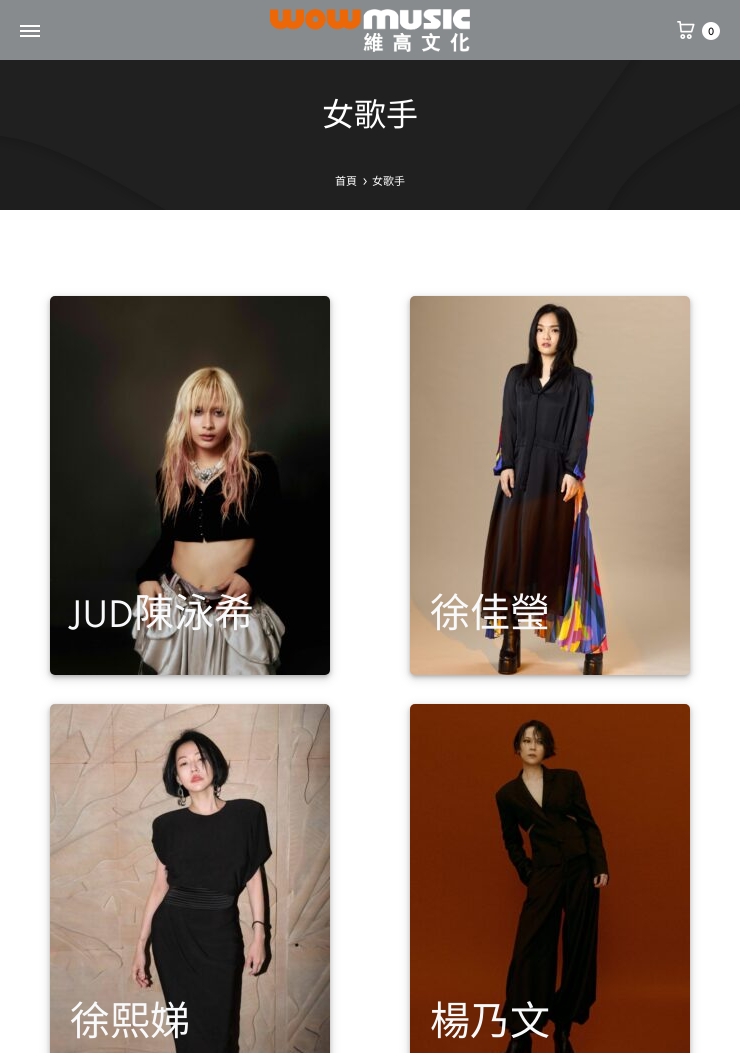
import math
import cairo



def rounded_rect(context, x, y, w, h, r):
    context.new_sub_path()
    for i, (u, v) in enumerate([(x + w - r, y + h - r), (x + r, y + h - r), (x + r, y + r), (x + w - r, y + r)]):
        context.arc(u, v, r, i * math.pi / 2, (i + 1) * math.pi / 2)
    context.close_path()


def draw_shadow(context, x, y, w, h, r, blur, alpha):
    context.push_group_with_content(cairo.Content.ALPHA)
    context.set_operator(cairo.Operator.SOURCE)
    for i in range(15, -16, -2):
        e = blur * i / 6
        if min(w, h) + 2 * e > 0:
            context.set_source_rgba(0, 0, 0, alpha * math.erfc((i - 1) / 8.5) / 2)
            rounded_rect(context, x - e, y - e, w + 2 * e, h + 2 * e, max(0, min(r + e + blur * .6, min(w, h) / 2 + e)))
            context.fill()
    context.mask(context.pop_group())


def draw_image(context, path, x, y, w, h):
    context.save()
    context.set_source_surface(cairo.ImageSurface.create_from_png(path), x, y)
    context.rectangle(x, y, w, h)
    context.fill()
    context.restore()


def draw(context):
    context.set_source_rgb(1, 1, 1)
    context.paint()
    context.set_source_rgb(136 / 255, 139 / 255, 141 / 255)
    context.rectangle(0, 0, 740, 60)
    context.fill()
    context.set_source_rgb(1, 1, 1)
    context.rectangle(20, 30, 20, 2)
    context.fill()
    context.rectangle(20, 25, 20, 2)
    context.fill()
    context.rectangle(20, 35, 20, 2)
    context.fill()
    draw_image(context, "images/1.png", 270, 9, 200, 43)
    draw_image(context, "images/2.png", 677, 21, 18, 18)
    context.arc(711, 31, 9, 0, 2 * math.pi)
    context.fill()
    draw_image(context, "images/3.png", 0, 60, 740, 150)
    draw_image(context, "images/4.png", 363, 178, 4, 7)
    context.set_source_rgb(0, 0, 0)
    draw_shadow(context, 50, 299, 280, 379, 5, 5, 0.19)
    draw_shadow(context, 50, 298, 280, 379, 5, 2, 0.2)
    draw_image(context, "images/5.png", 50, 296, 280, 379)
    draw_shadow(context, 410, 299, 280, 379, 5, 5, 0.19)
    draw_shadow(context, 410, 298, 280, 379, 5, 2, 0.2)
    draw_image(context, "images/6.png", 410, 296, 280, 379)
    draw_shadow(context, 50, 707, 280, 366, 5, 5, 0.19)
    draw_shadow(context, 50, 706, 280, 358, 5, 2, 0.2)
    draw_image(context, "images/7.png", 50, 704, 280, 349)
    draw_shadow(context, 410, 707, 280, 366, 5, 5, 0.19)
    draw_shadow(context, 410, 706, 280, 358, 5, 2, 0.2)
    draw_image(context, "images/8.png", 410, 704, 280, 349)
    context.select_font_face("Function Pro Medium")
    context.set_font_size(11)
    context.set_source_rgb(22 / 255, 22 / 255, 25 / 255)
    context.move_to(708, 35)
    context.show_text("0")
    context.select_font_face("Noto Sans CJK TC")
    context.set_font_size(32)
    context.set_source_rgb(1, 1, 1)
    context.move_to(322, 126)
    context.show_text("女歌手")
    context.set_font_size(11)
    context.move_to(335, 185)
    context.show_text("首頁")
    context.move_to(372, 185)
    context.show_text("女歌手")
    context.select_font_face("Function Pro")
    context.set_font_size(40)
    context.set_source_rgb(248 / 255, 249 / 255, 250 / 255)
    context.move_to(70, 627)
    context.show_text("JUD")
    context.select_font_face("Noto Sans CJK TC")
    context.move_to(134, 627)
    context.show_text("陳泳希")
    context.move_to(430, 627)
    context.show_text("徐佳瑩")
    context.move_to(70, 1035)
    context.show_text("徐熙娣")
    context.move_to(430, 1035)
    context.show_text("楊乃文")


surface = cairo.ImageSurface(cairo.Format.RGB24, 740, 1053)
context = cairo.Context(surface)
options = cairo.FontOptions()
options.set_hint_metrics(cairo.HintMetrics.OFF)
options.set_hint_style(cairo.HintStyle.NONE)
context.set_font_options(options)
context.set_miter_limit(4)
draw(context)
surface.write_to_png("out.png")
